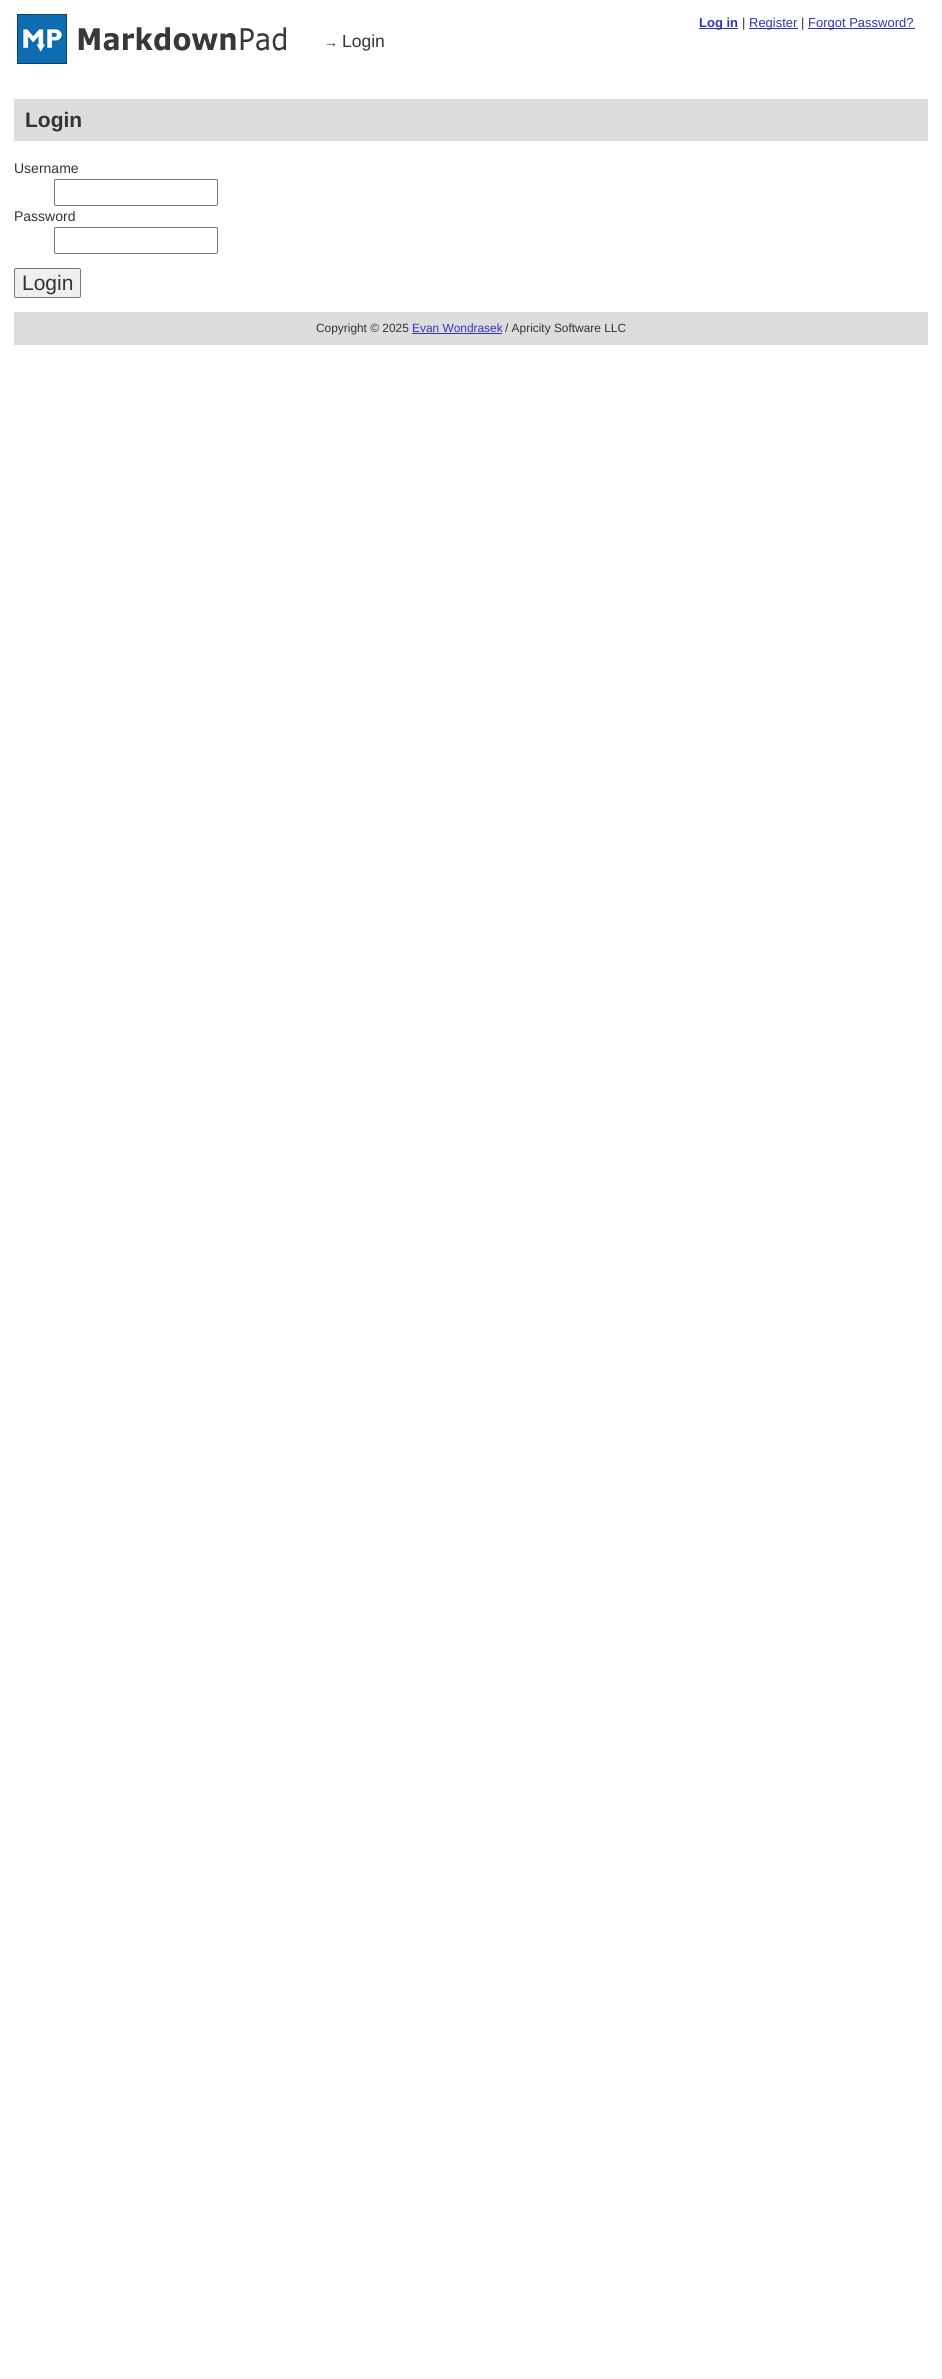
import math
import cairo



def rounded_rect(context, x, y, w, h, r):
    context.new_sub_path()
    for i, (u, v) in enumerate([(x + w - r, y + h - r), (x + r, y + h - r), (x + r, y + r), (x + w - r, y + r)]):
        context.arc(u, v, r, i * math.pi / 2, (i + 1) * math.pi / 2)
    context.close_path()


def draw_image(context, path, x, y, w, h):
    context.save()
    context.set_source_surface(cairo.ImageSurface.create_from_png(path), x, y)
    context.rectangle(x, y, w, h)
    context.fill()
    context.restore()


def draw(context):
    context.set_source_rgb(1, 1, 1)
    context.paint()
    draw_image(context, "images/1.png", 17, 14, 269, 50)
    context.set_source_rgb(47 / 255, 52 / 255, 184 / 255)
    context.rectangle(699, 28, 39, 1)
    context.fill()
    context.rectangle(749, 28, 49, 1)
    context.fill()
    context.rectangle(808, 28, 107, 1)
    context.fill()
    context.set_source_rgb(221 / 255, 221 / 255, 221 / 255)
    context.rectangle(14, 99, 914, 42)
    context.fill()
    rounded_rect(context, 54.5, 179.5, 163, 26, 1.5)
    context.set_source_rgb(118 / 255, 118 / 255, 118 / 255)
    context.set_line_width(1)
    context.stroke()
    rounded_rect(context, 54.5, 227.5, 163, 26, 1.5)
    context.stroke()
    context.set_source_rgb(239 / 255, 239 / 255, 239 / 255)
    rounded_rect(context, 14.5, 268.5, 66, 29, 1.5)
    context.fill_preserve()
    context.set_source_rgb(118 / 255, 118 / 255, 118 / 255)
    context.stroke()
    context.set_source_rgb(221 / 255, 221 / 255, 221 / 255)
    context.rectangle(14, 312, 914, 33)
    context.fill()
    context.set_source_rgb(47 / 255, 52 / 255, 184 / 255)
    context.rectangle(412, 333, 90, 1)
    context.fill()
    context.select_font_face("Liberation Sans", cairo.FontSlant.NORMAL, cairo.FontWeight.BOLD)
    context.set_font_size(13)
    context.move_to(699, 27)
    context.show_text("Log in")
    context.select_font_face("Liberation Sans")
    context.set_source_rgb(51 / 255, 51 / 255, 51 / 255)
    context.move_to(742, 27)
    context.show_text("|")
    context.set_source_rgb(47 / 255, 52 / 255, 184 / 255)
    context.move_to(749, 27)
    context.show_text("Register")
    context.set_source_rgb(51 / 255, 51 / 255, 51 / 255)
    context.move_to(801, 27)
    context.show_text("|")
    context.set_source_rgb(47 / 255, 52 / 255, 184 / 255)
    context.move_to(808, 27)
    context.show_text("Forgot Password?")
    context.set_font_size(14)
    context.set_source_rgb(51 / 255, 51 / 255, 51 / 255)
    context.move_to(324, 47)
    context.show_text("→")
    context.set_font_size(17.5)
    context.move_to(342, 47)
    context.show_text("Login")
    context.select_font_face("Liberation Sans", cairo.FontSlant.NORMAL, cairo.FontWeight.BOLD)
    context.set_font_size(21)
    context.move_to(25, 127)
    context.show_text("Login")
    context.select_font_face("Liberation Sans")
    context.set_font_size(14)
    context.move_to(14, 173)
    context.show_text("Username")
    context.move_to(14, 221)
    context.show_text("Password")
    context.set_font_size(21)
    context.move_to(22, 290)
    context.show_text("Login")
    context.set_font_size(11.9)
    context.move_to(316, 332)
    context.show_text("Copyright © 2025")
    context.set_source_rgb(47 / 255, 52 / 255, 184 / 255)
    context.move_to(412, 332)
    context.show_text("Evan Wondrasek")
    context.set_source_rgb(51 / 255, 51 / 255, 51 / 255)
    context.move_to(505, 332)
    context.show_text("/ Apricity Software LLC")


surface = cairo.ImageSurface(cairo.Format.RGB24, 942, 2379)
context = cairo.Context(surface)
options = cairo.FontOptions()
options.set_hint_metrics(cairo.HintMetrics.OFF)
options.set_hint_style(cairo.HintStyle.NONE)
context.set_font_options(options)
context.set_miter_limit(4)
draw(context)
surface.write_to_png("out.png")
